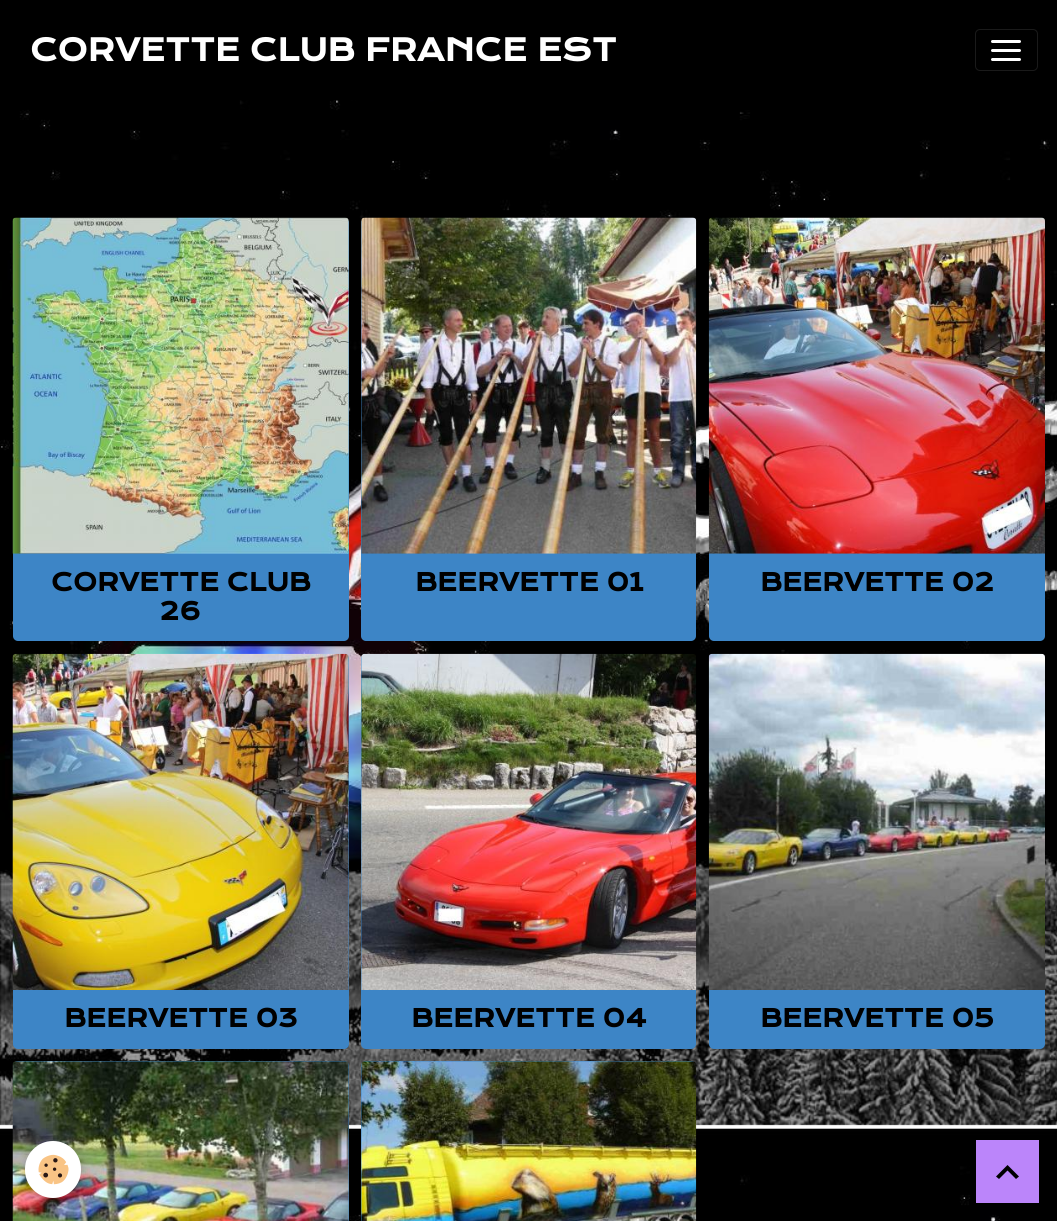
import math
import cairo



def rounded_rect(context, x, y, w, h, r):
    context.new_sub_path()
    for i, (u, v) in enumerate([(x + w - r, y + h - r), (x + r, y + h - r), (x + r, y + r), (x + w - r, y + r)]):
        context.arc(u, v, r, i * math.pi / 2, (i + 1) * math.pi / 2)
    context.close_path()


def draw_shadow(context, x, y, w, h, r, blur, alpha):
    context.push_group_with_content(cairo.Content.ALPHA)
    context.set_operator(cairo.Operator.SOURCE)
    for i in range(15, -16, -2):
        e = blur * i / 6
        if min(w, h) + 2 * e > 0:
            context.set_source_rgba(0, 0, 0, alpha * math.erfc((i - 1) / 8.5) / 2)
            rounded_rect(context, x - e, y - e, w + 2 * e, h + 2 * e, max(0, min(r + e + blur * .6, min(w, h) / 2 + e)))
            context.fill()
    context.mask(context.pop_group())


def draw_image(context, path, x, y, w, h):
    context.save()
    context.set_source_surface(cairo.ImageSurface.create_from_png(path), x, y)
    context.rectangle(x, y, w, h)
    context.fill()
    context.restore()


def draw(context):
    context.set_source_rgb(1, 1, 1)
    context.paint()
    draw_image(context, "images/1.png", 0, 100, 1057, 1121)
    context.set_source_rgb(0, 0, 0)
    context.rectangle(0, 0, 1057, 100)
    context.fill()
    rounded_rect(context, 975.5, 29.5, 62, 41, 4.5)
    context.set_source_rgb(26 / 255, 26 / 255, 26 / 255)
    context.set_line_width(1)
    context.stroke()
    context.set_source_rgb(1, 1, 1)
    rounded_rect(context, 991, 40, 30, 3, 1.5)
    context.fill()
    rounded_rect(context, 991, 49, 30, 3, 1.5)
    context.fill()
    rounded_rect(context, 991, 58, 30, 3, 1.5)
    context.fill()
    context.set_source_rgb(61 / 255, 133 / 255, 198 / 255)
    rounded_rect(context, 13, 218, 336, 423, 5)
    context.fill()
    draw_image(context, "images/2.png", 12, 217, 337, 337)
    rounded_rect(context, 361, 218, 335, 423, 5)
    context.fill()
    draw_image(context, "images/3.png", 361, 217, 336, 337)
    rounded_rect(context, 709, 218, 336, 423, 5)
    context.fill()
    draw_image(context, "images/4.png", 708, 217, 337, 337)
    rounded_rect(context, 13, 654, 336, 395, 5)
    context.fill()
    draw_image(context, "images/5.png", 12, 653, 337, 337)
    rounded_rect(context, 361, 654, 335, 395, 5)
    context.fill()
    draw_image(context, "images/6.png", 361, 653, 336, 337)
    rounded_rect(context, 709, 654, 336, 395, 5)
    context.fill()
    draw_image(context, "images/7.png", 708, 653, 337, 337)
    rounded_rect(context, 13, 1061, 336, 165, 5)
    context.fill()
    draw_image(context, "images/8.png", 12, 1061, 337, 160)
    rounded_rect(context, 361, 1061, 335, 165, 5)
    context.fill()
    draw_image(context, "images/9.png", 361, 1061, 336, 160)
    context.set_source_rgb(0, 0, 0)
    draw_shadow(context, 25, 1145, 56, 56, 28, 6, 0.24)
    context.set_source_rgb(1, 1, 1)
    rounded_rect(context, 25, 1141, 56, 57, 28)
    context.fill()
    draw_image(context, "images/10.png", 38, 1154, 31, 31)
    context.set_source_rgb(187 / 255, 133 / 255, 250 / 255)
    context.rectangle(976, 1140, 63, 63)
    context.fill()
    context.set_source_rgb(0, 0, 0)
    context.new_path()
    context.move_to(1007.5, 1165)
    context.line_to(1019, 1176.5)
    context.line_to(1016, 1179)
    context.line_to(1007.5, 1170.5)
    context.line_to(999, 1179)
    context.line_to(996, 1176.5)
    context.close_path()
    context.fill()
    context.select_font_face("Krona One", cairo.FontSlant.NORMAL, cairo.FontWeight.BOLD)
    context.set_font_size(30)
    context.set_source_rgb(1, 1, 1)
    context.move_to(30, 61)
    context.show_text("CORVETTE CLUB FRANCE EST")
    context.set_font_size(24)
    context.set_source_rgb(0, 0, 0)
    context.move_to(51, 591)
    context.show_text("CORVETTE CLUB")
    context.move_to(159, 620)
    context.show_text("26")
    context.move_to(415, 591)
    context.show_text("BEERVETTE 01")
    context.move_to(760, 591)
    context.show_text("BEERVETTE 02")
    context.move_to(64, 1027)
    context.show_text("BEERVETTE 03")
    context.move_to(411, 1027)
    context.show_text("BEERVETTE 04")
    context.move_to(760, 1027)
    context.show_text("BEERVETTE 05")


surface = cairo.ImageSurface(cairo.Format.RGB24, 1057, 1221)
context = cairo.Context(surface)
options = cairo.FontOptions()
options.set_hint_metrics(cairo.HintMetrics.OFF)
options.set_hint_style(cairo.HintStyle.NONE)
context.set_font_options(options)
context.set_miter_limit(4)
draw(context)
surface.write_to_png("out.png")
